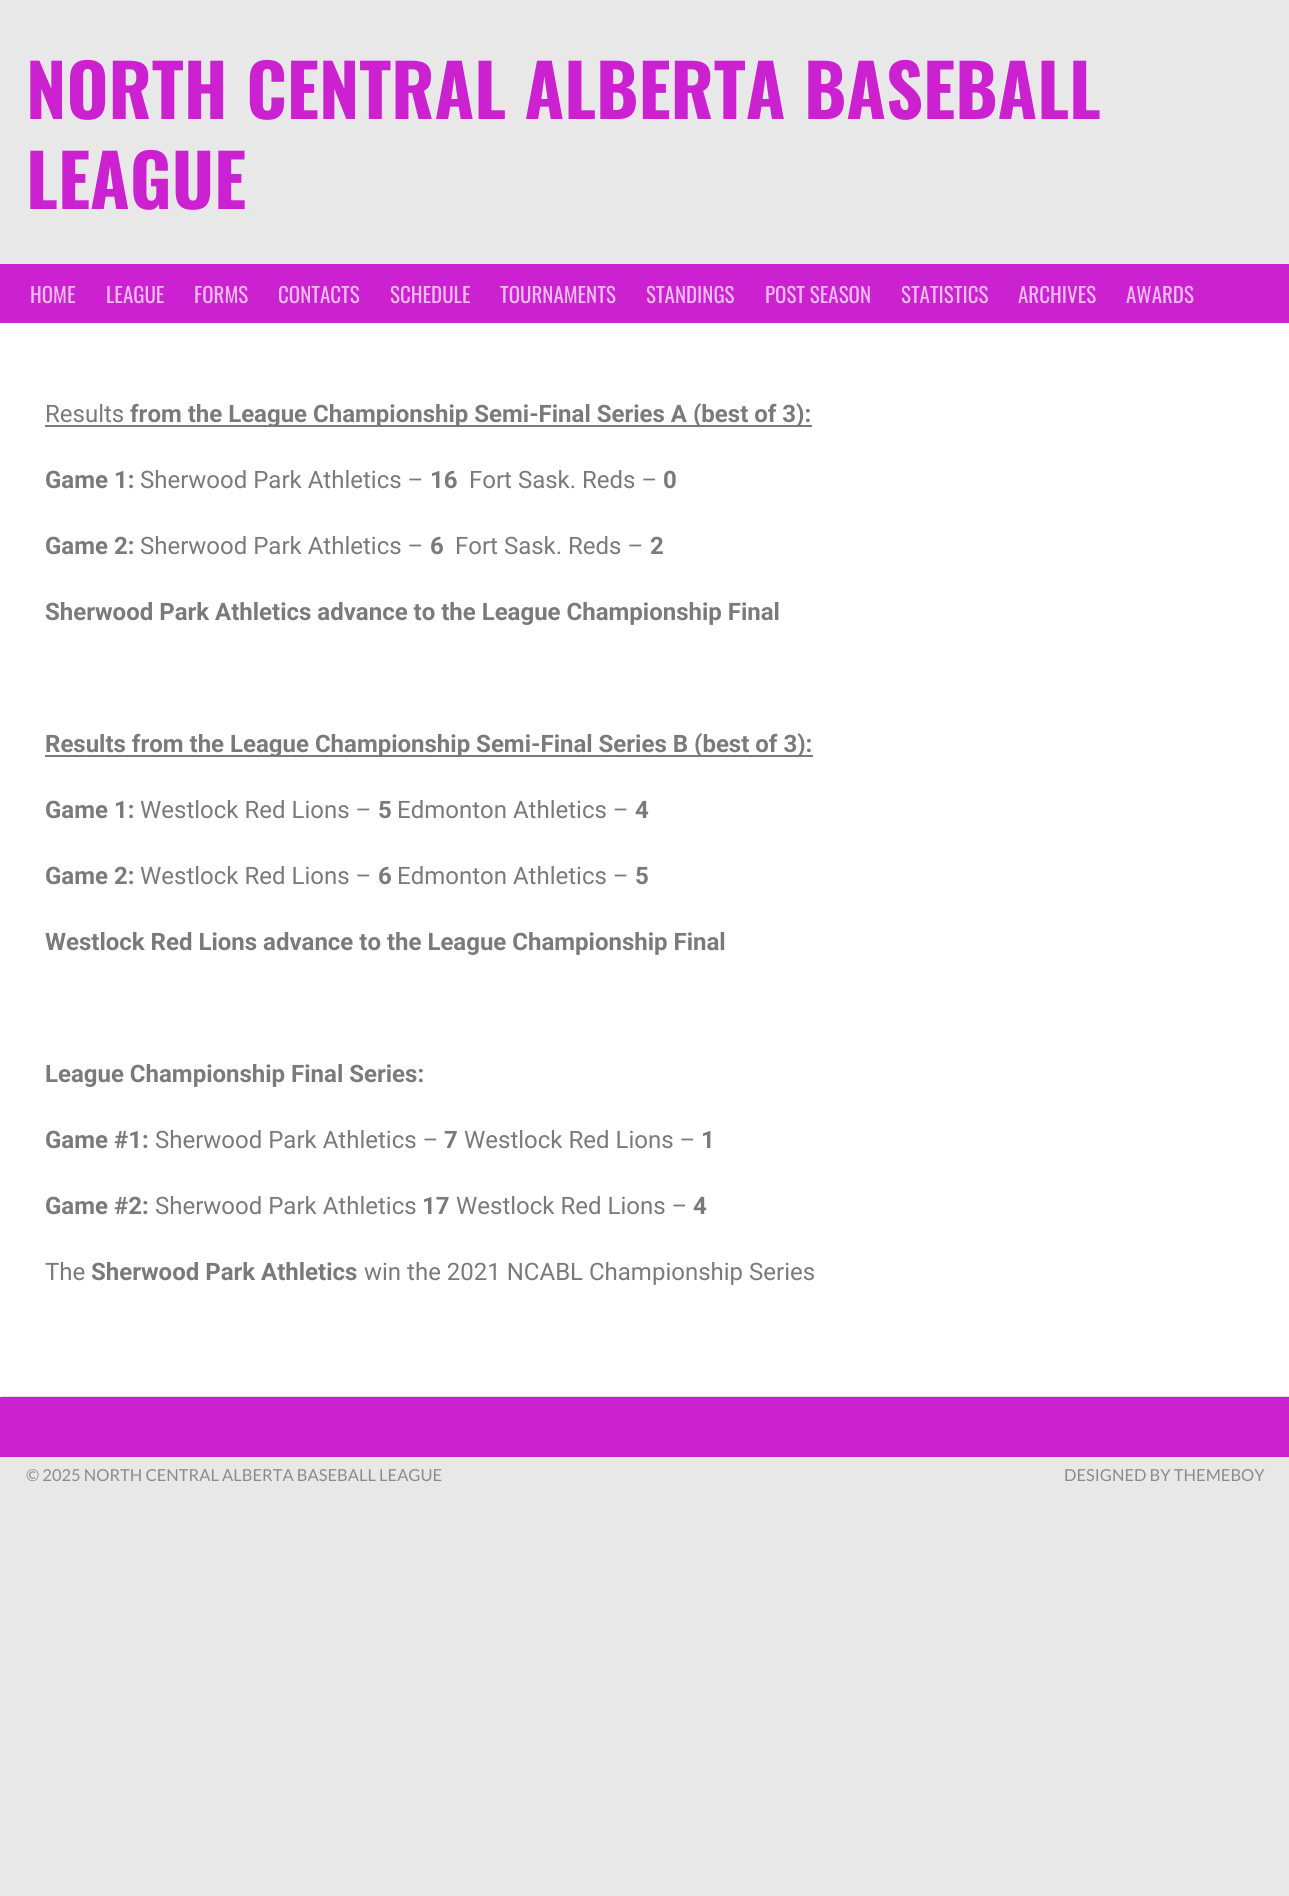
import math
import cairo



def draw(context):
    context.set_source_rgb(232 / 255, 232 / 255, 232 / 255)
    context.paint()
    context.set_source_rgb(203 / 255, 33 / 255, 209 / 255)
    context.rectangle(0, 264, 1289, 59)
    context.fill()
    context.set_source_rgb(1, 1, 1)
    context.rectangle(0, 323, 1289, 1074)
    context.fill()
    context.set_source_rgb(224 / 255, 224 / 255, 224 / 255)
    context.new_path()
    context.move_to(2, 1396)
    context.line_to(2, 1397)
    context.line_to(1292, 1397)
    context.line_to(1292, 323)
    context.line_to(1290, 323)
    context.line_to(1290, 1396)
    context.close_path()
    context.fill()
    context.set_source_rgb(122 / 255, 122 / 255, 122 / 255)
    context.rectangle(45, 425, 767, 2)
    context.fill()
    context.rectangle(45, 755, 768, 2)
    context.fill()
    context.set_source_rgb(203 / 255, 33 / 255, 209 / 255)
    context.rectangle(0, 1397, 1289, 60)
    context.fill()
    context.select_font_face("Oswald", cairo.FontSlant.NORMAL, cairo.FontWeight.BOLD)
    context.set_font_size(72)
    context.move_to(26, 119)
    context.show_text("NORTH CENTRAL ALBERTA BASEBALL")
    context.move_to(26, 209)
    context.show_text("LEAGUE")
    context.select_font_face("Oswald")
    context.set_font_size(21)
    context.set_source_rgb(239 / 255, 188 / 255, 241 / 255)
    context.move_to(30, 303)
    context.show_text("HOME")
    context.move_to(106, 303)
    context.show_text("LEAGUE")
    context.move_to(194, 303)
    context.show_text("FORMS")
    context.move_to(278, 303)
    context.show_text("CONTACTS")
    context.move_to(390, 303)
    context.show_text("SCHEDULE")
    context.move_to(500, 303)
    context.show_text("TOURNAMENTS")
    context.move_to(646, 303)
    context.show_text("STANDINGS")
    context.move_to(765, 303)
    context.show_text("POST SEASON")
    context.move_to(901, 303)
    context.show_text("STATISTICS")
    context.move_to(1018, 303)
    context.show_text("ARCHIVES")
    context.move_to(1126, 303)
    context.show_text("AWARDS")
    context.select_font_face("Roboto")
    context.set_font_size(24)
    context.set_source_rgb(122 / 255, 122 / 255, 122 / 255)
    context.move_to(45, 422)
    context.show_text("Results")
    context.select_font_face("Roboto", cairo.FontSlant.NORMAL, cairo.FontWeight.BOLD)
    context.move_to(130, 422)
    context.show_text("from the League Championship Semi-Final Series A (best of 3):")
    context.move_to(45, 488)
    context.show_text("Game 1:")
    context.select_font_face("Roboto")
    context.move_to(140, 488)
    context.show_text("Sherwood Park Athletics –")
    context.select_font_face("Roboto", cairo.FontSlant.NORMAL, cairo.FontWeight.BOLD)
    context.move_to(430, 488)
    context.show_text("16")
    context.select_font_face("Roboto")
    context.move_to(469, 488)
    context.show_text("Fort Sask. Reds –")
    context.select_font_face("Roboto", cairo.FontSlant.NORMAL, cairo.FontWeight.BOLD)
    context.move_to(663, 488)
    context.show_text("0")
    context.move_to(45, 554)
    context.show_text("Game 2:")
    context.select_font_face("Roboto")
    context.move_to(140, 554)
    context.show_text("Sherwood Park Athletics –")
    context.select_font_face("Roboto", cairo.FontSlant.NORMAL, cairo.FontWeight.BOLD)
    context.move_to(430, 554)
    context.show_text("6")
    context.select_font_face("Roboto")
    context.move_to(455, 554)
    context.show_text("Fort Sask. Reds –")
    context.select_font_face("Roboto", cairo.FontSlant.NORMAL, cairo.FontWeight.BOLD)
    context.move_to(650, 554)
    context.show_text("2")
    context.move_to(45, 620)
    context.show_text("Sherwood Park Athletics advance to the League Championship Final")
    context.move_to(45, 752)
    context.show_text("Results from the League Championship Semi-Final Series B (best of 3):")
    context.move_to(45, 818)
    context.show_text("Game 1:")
    context.select_font_face("Roboto")
    context.move_to(140, 818)
    context.show_text("Westlock Red Lions –")
    context.select_font_face("Roboto", cairo.FontSlant.NORMAL, cairo.FontWeight.BOLD)
    context.move_to(378, 818)
    context.show_text("5")
    context.select_font_face("Roboto")
    context.move_to(397, 818)
    context.show_text("Edmonton Athletics –")
    context.select_font_face("Roboto", cairo.FontSlant.NORMAL, cairo.FontWeight.BOLD)
    context.move_to(635, 818)
    context.show_text("4")
    context.move_to(45, 884)
    context.show_text("Game 2:")
    context.select_font_face("Roboto")
    context.move_to(140, 884)
    context.show_text("Westlock Red Lions –")
    context.select_font_face("Roboto", cairo.FontSlant.NORMAL, cairo.FontWeight.BOLD)
    context.move_to(378, 884)
    context.show_text("6")
    context.select_font_face("Roboto")
    context.move_to(397, 884)
    context.show_text("Edmonton Athletics –")
    context.select_font_face("Roboto", cairo.FontSlant.NORMAL, cairo.FontWeight.BOLD)
    context.move_to(635, 884)
    context.show_text("5")
    context.move_to(45, 950)
    context.show_text("Westlock Red Lions advance to the League Championship Final")
    context.move_to(45, 1082)
    context.show_text("League Championship Final Series:")
    context.move_to(45, 1148)
    context.show_text("Game #1:")
    context.select_font_face("Roboto")
    context.move_to(155, 1148)
    context.show_text("Sherwood Park Athletics –")
    context.select_font_face("Roboto", cairo.FontSlant.NORMAL, cairo.FontWeight.BOLD)
    context.move_to(444, 1148)
    context.show_text("7")
    context.select_font_face("Roboto")
    context.move_to(464, 1148)
    context.show_text("Westlock Red Lions –")
    context.select_font_face("Roboto", cairo.FontSlant.NORMAL, cairo.FontWeight.BOLD)
    context.move_to(701, 1148)
    context.show_text("1")
    context.move_to(45, 1214)
    context.show_text("Game #2:")
    context.select_font_face("Roboto")
    context.move_to(155, 1214)
    context.show_text("Sherwood Park Athletics")
    context.select_font_face("Roboto", cairo.FontSlant.NORMAL, cairo.FontWeight.BOLD)
    context.move_to(422, 1214)
    context.show_text("17")
    context.select_font_face("Roboto")
    context.move_to(456, 1214)
    context.show_text("Westlock Red Lions –")
    context.select_font_face("Roboto", cairo.FontSlant.NORMAL, cairo.FontWeight.BOLD)
    context.move_to(693, 1214)
    context.show_text("4")
    context.select_font_face("Roboto")
    context.move_to(45, 1280)
    context.show_text("The")
    context.select_font_face("Roboto", cairo.FontSlant.NORMAL, cairo.FontWeight.BOLD)
    context.move_to(91, 1280)
    context.show_text("Sherwood Park Athletics")
    context.select_font_face("Roboto")
    context.move_to(364, 1280)
    context.show_text("win the 2021 NCABL Championship Series")
    context.select_font_face("Lato")
    context.set_font_size(16.5)
    context.set_source_rgb(139 / 255, 139 / 255, 139 / 255)
    context.move_to(26, 1481)
    context.show_text("© 2025 NORTH CENTRAL ALBERTA BASEBALL LEAGUE")
    context.move_to(1064, 1481)
    context.show_text("DESIGNED BY THEMEBOY")


surface = cairo.ImageSurface(cairo.Format.RGB24, 1289, 1896)
context = cairo.Context(surface)
options = cairo.FontOptions()
options.set_hint_metrics(cairo.HintMetrics.OFF)
options.set_hint_style(cairo.HintStyle.NONE)
context.set_font_options(options)
context.set_miter_limit(4)
draw(context)
surface.write_to_png("out.png")
